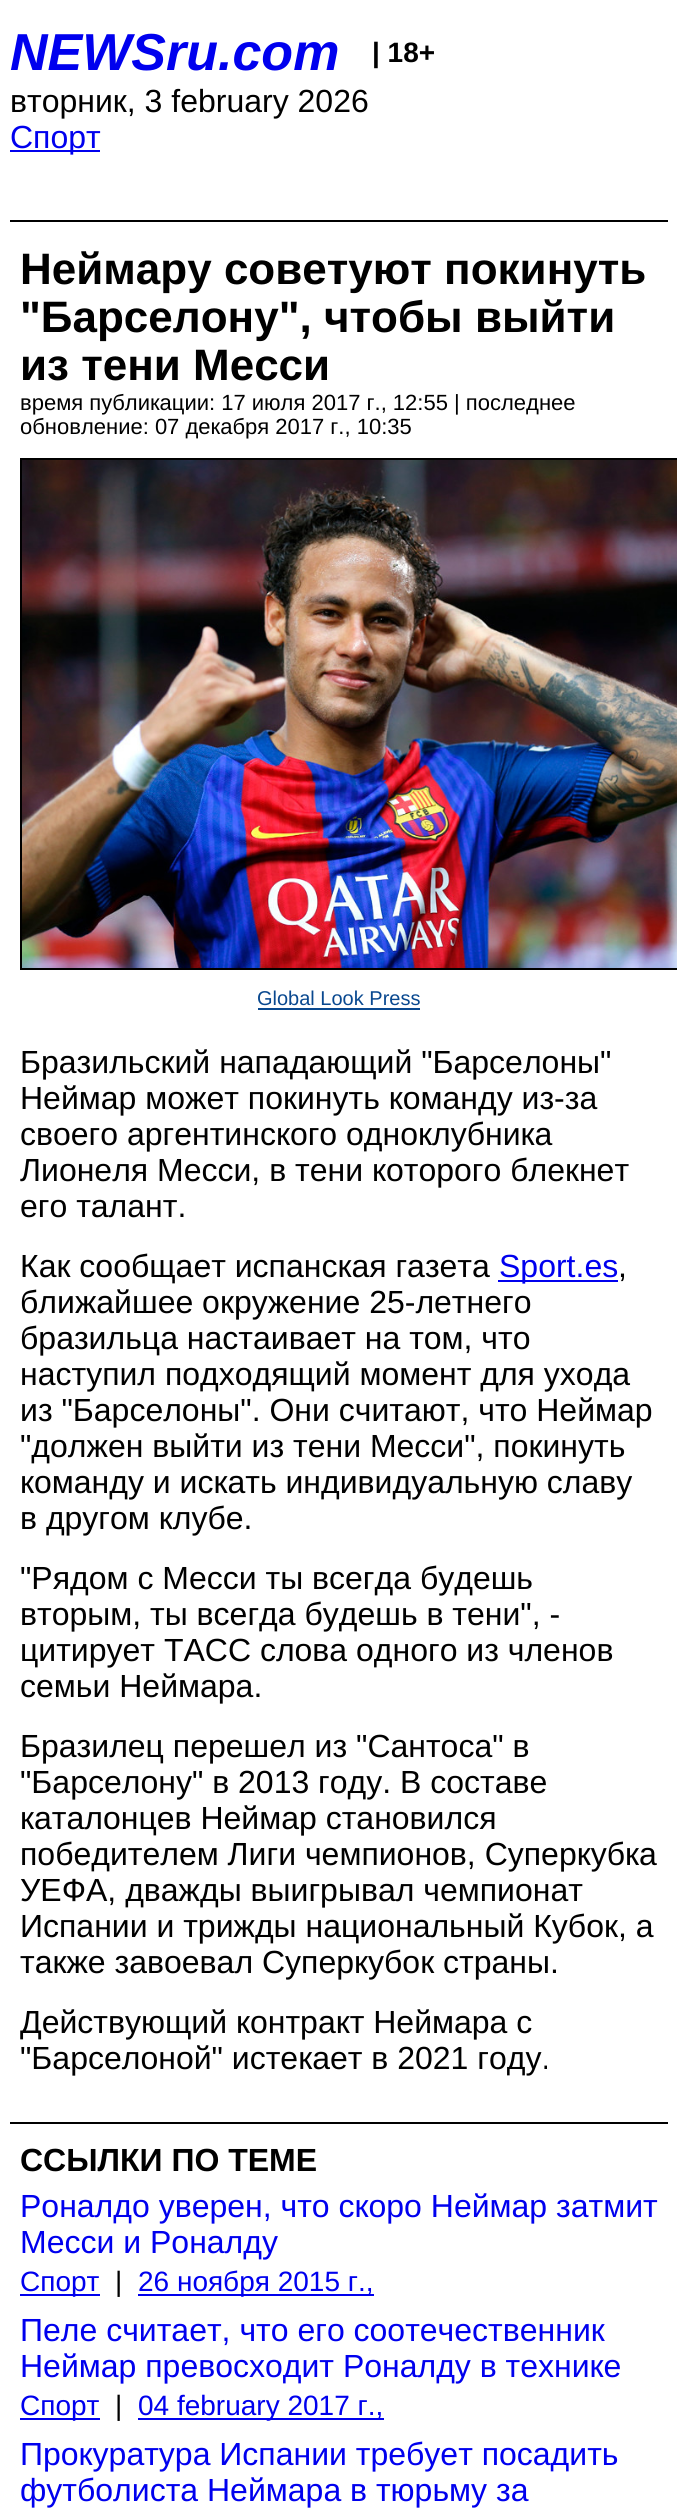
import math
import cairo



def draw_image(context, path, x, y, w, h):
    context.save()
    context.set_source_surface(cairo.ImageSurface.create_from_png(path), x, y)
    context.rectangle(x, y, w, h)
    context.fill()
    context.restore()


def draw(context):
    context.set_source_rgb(1, 1, 1)
    context.paint()
    context.set_source_rgb(0, 0, 0)
    context.rectangle(10, 220, 658, 2)
    context.fill()
    context.set_source_rgb(0, 0, 238 / 255)
    context.rectangle(10, 150, 90, 2)
    context.fill()
    context.set_source_rgb(0, 0, 0)
    context.rectangle(10, 2122, 658, 2)
    context.fill()
    context.rectangle(21, 459, 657, 510)
    context.stroke()
    draw_image(context, "images/1.png", 22, 460, 655, 508)
    context.set_source_rgb(9 / 255, 72 / 255, 143 / 255)
    context.rectangle(258, 1008, 162, 2)
    context.fill()
    context.set_source_rgb(0, 0, 238 / 255)
    context.rectangle(498, 1280, 120, 2)
    context.fill()
    context.rectangle(20, 2294, 80, 2)
    context.fill()
    context.rectangle(138, 2294, 236, 2)
    context.fill()
    context.rectangle(20, 2418, 80, 2)
    context.fill()
    context.rectangle(138, 2418, 246, 2)
    context.fill()
    context.select_font_face("Liberation Sans", cairo.FontSlant.ITALIC, cairo.FontWeight.BOLD)
    context.set_font_size(52)
    context.move_to(10, 70)
    context.show_text("NEWSru.com")
    context.select_font_face("Liberation Sans", cairo.FontSlant.NORMAL, cairo.FontWeight.BOLD)
    context.set_font_size(28)
    context.set_source_rgb(0, 0, 0)
    context.move_to(372, 62)
    context.show_text("| 18+")
    context.select_font_face("Liberation Sans")
    context.set_font_size(32)
    context.move_to(10, 112)
    context.show_text("вторник, 3 february 2026")
    context.set_source_rgb(0, 0, 238 / 255)
    context.move_to(10, 148)
    context.show_text("Спорт")
    context.select_font_face("Liberation Sans", cairo.FontSlant.NORMAL, cairo.FontWeight.BOLD)
    context.set_font_size(44)
    context.set_source_rgb(0, 0, 0)
    context.move_to(20, 284)
    context.show_text("Неймару советуют покинуть")
    context.move_to(20, 332)
    context.show_text("\"Барселону\", чтобы выйти")
    context.move_to(20, 380)
    context.show_text("из тени Месси")
    context.select_font_face("Liberation Sans")
    context.set_font_size(22)
    context.move_to(20, 410)
    context.show_text("время публикации: 17 июля 2017 г., 12:55 | последнее")
    context.move_to(20, 434)
    context.show_text("обновление: 07 декабря 2017 г., 10:35")
    context.set_font_size(20)
    context.set_source_rgb(9 / 255, 72 / 255, 143 / 255)
    context.move_to(257, 1005)
    context.show_text("Global Look Press")
    context.set_font_size(32)
    context.set_source_rgb(0, 0, 0)
    context.move_to(20, 1073)
    context.show_text("Бразильский нападающий \"Барселоны\"")
    context.move_to(20, 1109)
    context.show_text("Неймар может покинуть команду из-за")
    context.move_to(20, 1145)
    context.show_text("своего аргентинского одноклубника")
    context.move_to(20, 1181)
    context.show_text("Лионеля Месси, в тени которого блекнет")
    context.move_to(20, 1217)
    context.show_text("его талант.")
    context.move_to(20, 1277)
    context.show_text("Как сообщает испанская газета")
    context.set_source_rgb(0, 0, 238 / 255)
    context.move_to(499, 1277)
    context.show_text("Sport.es")
    context.set_source_rgb(0, 0, 0)
    context.move_to(618, 1277)
    context.show_text(",")
    context.move_to(20, 1313)
    context.show_text("ближайшее окружение 25-летнего")
    context.move_to(20, 1349)
    context.show_text("бразильца настаивает на том, что")
    context.move_to(20, 1385)
    context.show_text("наступил подходящий момент для ухода")
    context.move_to(20, 1421)
    context.show_text("из \"Барселоны\". Они считают, что Неймар")
    context.move_to(20, 1457)
    context.show_text("\"должен выйти из тени Месси\", покинуть")
    context.move_to(20, 1493)
    context.show_text("команду и искать индивидуальную славу")
    context.move_to(20, 1529)
    context.show_text("в другом клубе.")
    context.move_to(20, 1589)
    context.show_text("\"Рядом с Месси ты всегда будешь")
    context.move_to(20, 1625)
    context.show_text("вторым, ты всегда будешь в тени\", -")
    context.move_to(20, 1661)
    context.show_text("цитирует ТАСС слова одного из членов")
    context.move_to(20, 1697)
    context.show_text("семьи Неймара.")
    context.move_to(20, 1757)
    context.show_text("Бразилец перешел из \"Сантоса\" в")
    context.move_to(20, 1793)
    context.show_text("\"Барселону\" в 2013 году. В составе")
    context.move_to(20, 1829)
    context.show_text("каталонцев Неймар становился")
    context.move_to(20, 1865)
    context.show_text("победителем Лиги чемпионов, Суперкубка")
    context.move_to(20, 1901)
    context.show_text("УЕФА, дважды выигрывал чемпионат")
    context.move_to(20, 1937)
    context.show_text("Испании и трижды национальный Кубок, а")
    context.move_to(20, 1973)
    context.show_text("также завоевал Суперкубок страны.")
    context.move_to(20, 2033)
    context.show_text("Действующий контракт Неймара с")
    context.move_to(20, 2069)
    context.show_text("\"Барселоной\" истекает в 2021 году.")
    context.select_font_face("Liberation Sans", cairo.FontSlant.NORMAL, cairo.FontWeight.BOLD)
    context.move_to(20, 2171)
    context.show_text("ССЫЛКИ ПО ТЕМЕ")
    context.select_font_face("Liberation Sans")
    context.set_source_rgb(0, 0, 238 / 255)
    context.move_to(20, 2217)
    context.show_text("Роналдо уверен, что скоро Неймар затмит")
    context.move_to(20, 2253)
    context.show_text("Месси и Роналду")
    context.set_font_size(28)
    context.move_to(20, 2291)
    context.show_text("Спорт")
    context.set_source_rgb(0, 0, 0)
    context.move_to(115, 2291)
    context.show_text("|")
    context.set_source_rgb(0, 0, 238 / 255)
    context.move_to(138, 2291)
    context.show_text("26 ноября 2015 г.,")
    context.set_font_size(32)
    context.move_to(20, 2341)
    context.show_text("Пеле считает, что его соотечественник")
    context.move_to(20, 2377)
    context.show_text("Неймар превосходит Роналду в технике")
    context.set_font_size(28)
    context.move_to(20, 2415)
    context.show_text("Спорт")
    context.set_source_rgb(0, 0, 0)
    context.move_to(115, 2415)
    context.show_text("|")
    context.set_source_rgb(0, 0, 238 / 255)
    context.move_to(138, 2415)
    context.show_text("04 february 2017 г.,")
    context.set_font_size(32)
    context.move_to(20, 2465)
    context.show_text("Прокуратура Испании требует посадить")
    context.move_to(20, 2501)
    context.show_text("футболиста Неймара в тюрьму за")


surface = cairo.ImageSurface(cairo.Format.RGB24, 677, 2519)
context = cairo.Context(surface)
options = cairo.FontOptions()
options.set_hint_metrics(cairo.HintMetrics.OFF)
options.set_hint_style(cairo.HintStyle.NONE)
context.set_font_options(options)
context.set_miter_limit(4)
draw(context)
surface.write_to_png("out.png")
